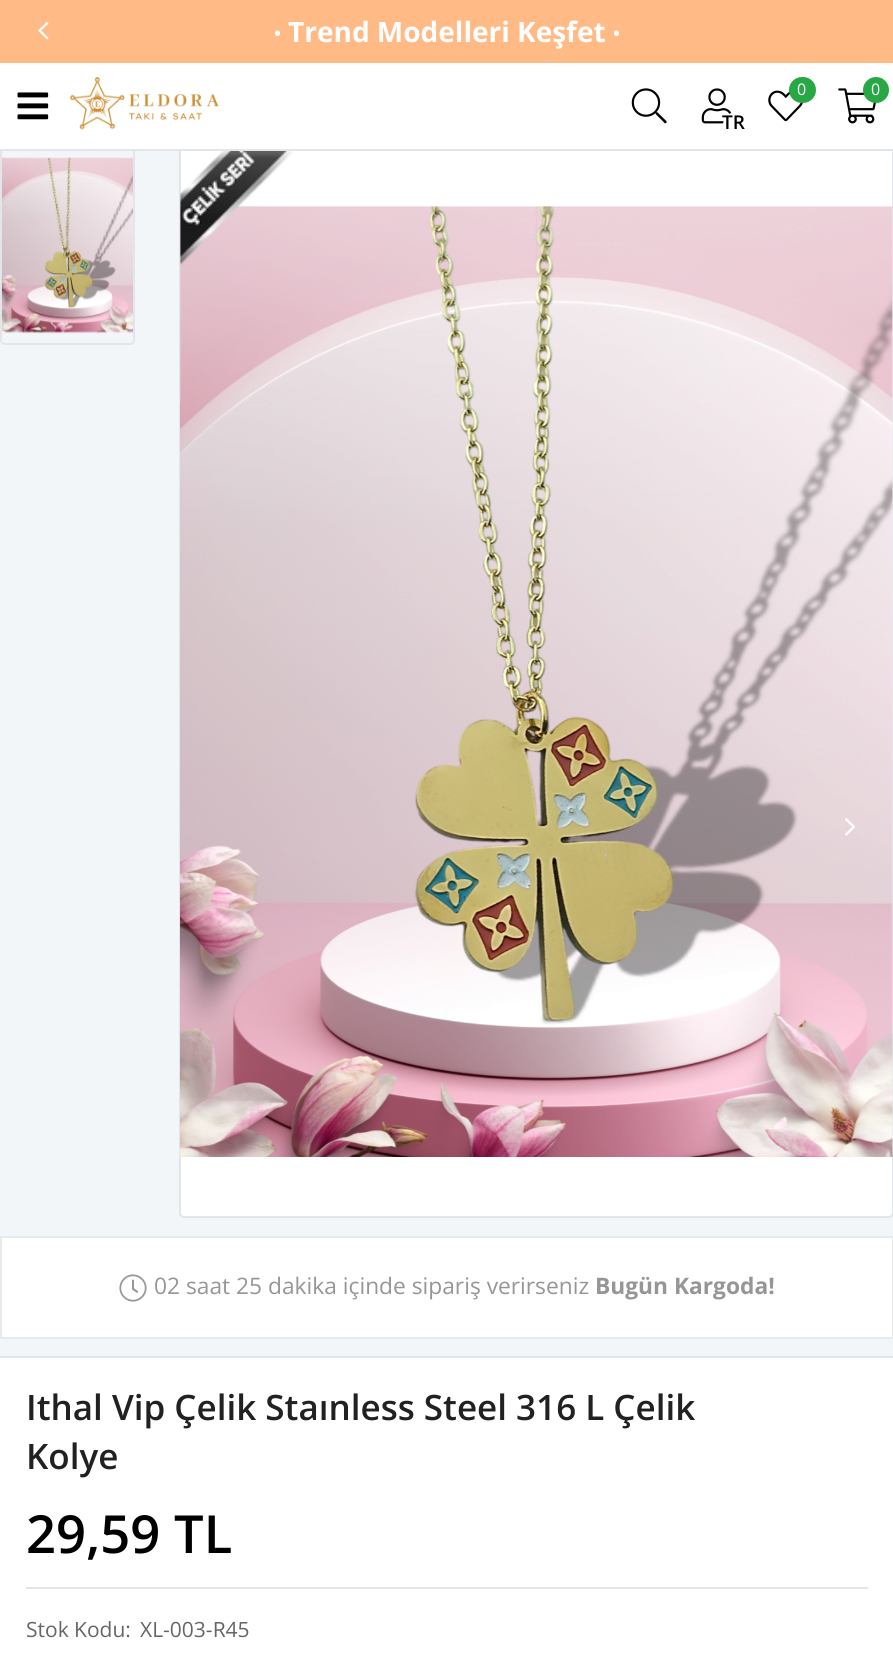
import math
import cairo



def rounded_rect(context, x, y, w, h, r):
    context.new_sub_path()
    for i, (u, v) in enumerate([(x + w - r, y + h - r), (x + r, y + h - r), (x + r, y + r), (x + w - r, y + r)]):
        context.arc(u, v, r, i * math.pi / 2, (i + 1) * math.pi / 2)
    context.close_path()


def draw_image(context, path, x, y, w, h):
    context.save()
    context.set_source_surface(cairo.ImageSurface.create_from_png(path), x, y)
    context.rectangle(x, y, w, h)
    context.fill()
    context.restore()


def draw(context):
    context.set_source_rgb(243 / 255, 246 / 255, 249 / 255)
    context.paint()
    rounded_rect(context, 1, 146, 133, 198, 4)
    context.set_source_rgb(226 / 255, 230 / 255, 235 / 255)
    context.stroke()
    context.set_source_rgb(1, 1, 1)
    rounded_rect(context, 180, 146, 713, 1071, 4)
    context.fill_preserve()
    context.set_source_rgb(226 / 255, 230 / 255, 235 / 255)
    context.stroke()
    context.set_source_rgb(1, 1, 1)
    context.rectangle(0, 63, 893, 86)
    context.fill()
    context.set_source_rgb(1, 186 / 255, 134 / 255)
    context.rectangle(0, 0, 893, 63)
    context.fill()
    draw_image(context, "images/1.png", 38, 22, 11, 18)
    context.set_source_rgb(226 / 255, 230 / 255, 235 / 255)
    context.rectangle(0, 149, 893, 2)
    context.fill()
    draw_image(context, "images/2.png", 17, 92, 32, 28)
    draw_image(context, "images/3.png", 70, 77, 150, 53)
    draw_image(context, "images/4.png", 631, 88, 36, 36)
    draw_image(context, "images/5.png", 701, 88, 31, 36)
    context.set_source_rgb(1, 1, 1)
    context.arc(736, 125, 13, 0, 2 * math.pi)
    context.fill()
    draw_image(context, "images/6.png", 768, 90, 35, 32)
    context.set_source_rgb(40 / 255, 167 / 255, 69 / 255)
    rounded_rect(context, 789, 77, 27, 26, 13)
    context.fill()
    draw_image(context, "images/7.png", 838, 88, 38, 36)
    context.arc(876, 90, 13, 0, 2 * math.pi)
    context.fill()
    draw_image(context, "images/11.png", 180, 206, 713, 951)
    draw_image(context, "images/8.png", 845, 818, 10, 18)
    draw_image(context, "images/9.png", 1, 157, 132, 177)
    draw_image(context, "images/10.png", 180, 151, 115, 114)
    context.set_source_rgb(1, 1, 1)
    context.rectangle(1, 1237, 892, 101)
    context.fill_preserve()
    context.set_source_rgb(232 / 255, 233 / 255, 235 / 255)
    context.stroke()
    draw_image(context, "images/12.png", 119, 1274, 28, 28)
    context.set_source_rgb(1, 1, 1)
    context.rectangle(0, 1358, 893, 296)
    context.fill()
    context.set_source_rgb(226 / 255, 230 / 255, 235 / 255)
    context.rectangle(0, 1356, 893, 2)
    context.fill()
    context.rectangle(26, 1587, 842, 2)
    context.fill()
    context.select_font_face("Open Sans")
    context.set_font_size(24)
    context.set_source_rgb(1, 1, 1)
    context.move_to(273, 42)
    context.show_text("•")
    context.select_font_face("Open Sans", cairo.FontSlant.NORMAL, cairo.FontWeight.BOLD)
    context.set_font_size(28)
    context.move_to(288, 42)
    context.show_text("Trend Modelleri Keşfet")
    context.select_font_face("Open Sans")
    context.set_font_size(24)
    context.move_to(612, 42)
    context.show_text("•")
    context.select_font_face("Open Sans SemiBold")
    context.set_font_size(19)
    context.set_source_rgb(0, 0, 0)
    context.move_to(722, 129)
    context.show_text("TR")
    context.select_font_face("Open Sans")
    context.set_font_size(16)
    context.set_source_rgb(1, 1, 1)
    context.move_to(797, 95)
    context.show_text("0")
    context.move_to(871, 95)
    context.show_text("0")
    context.set_font_size(22.75)
    context.set_source_rgb(150 / 255, 150 / 255, 150 / 255)
    context.move_to(154, 1294)
    context.show_text("02 saat 25 dakika içinde sipariş verirseniz")
    context.select_font_face("Open Sans", cairo.FontSlant.NORMAL, cairo.FontWeight.BOLD)
    context.move_to(595, 1294)
    context.show_text("Bugün Kargoda!")
    context.select_font_face("Open Sans SemiBold")
    context.set_font_size(35)
    context.set_source_rgb(33 / 255, 33 / 255, 33 / 255)
    context.move_to(26, 1420)
    context.show_text("Ithal Vip Çelik Staınless Steel 316 L Çelik")
    context.move_to(26, 1469)
    context.show_text("Kolye")
    context.set_font_size(52.5)
    context.set_source_rgb(0, 0, 0)
    context.move_to(26, 1553)
    context.show_text("29,59 TL")
    context.select_font_face("Open Sans")
    context.set_font_size(21)
    context.set_source_rgb(102 / 255, 102 / 255, 102 / 255)
    context.move_to(26, 1637)
    context.show_text("Stok Kodu:")
    context.move_to(140, 1637)
    context.show_text("XL-003-R45")


surface = cairo.ImageSurface(cairo.Format.RGB24, 893, 1654)
context = cairo.Context(surface)
options = cairo.FontOptions()
options.set_hint_metrics(cairo.HintMetrics.OFF)
options.set_hint_style(cairo.HintStyle.NONE)
context.set_font_options(options)
context.set_miter_limit(4)
draw(context)
surface.write_to_png("out.png")
